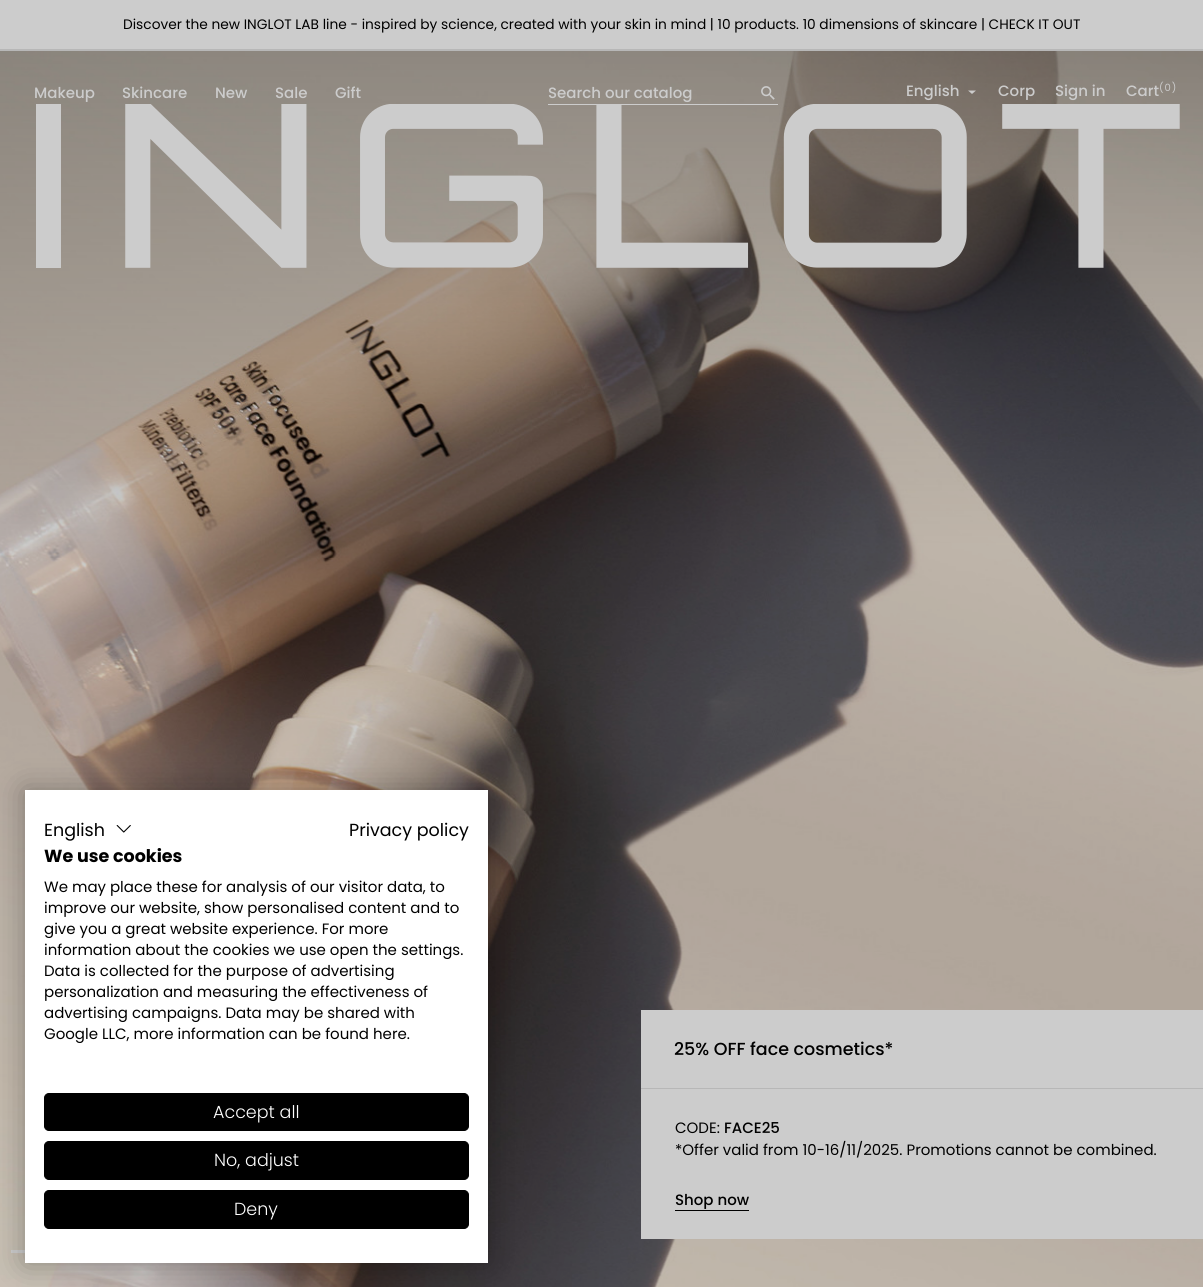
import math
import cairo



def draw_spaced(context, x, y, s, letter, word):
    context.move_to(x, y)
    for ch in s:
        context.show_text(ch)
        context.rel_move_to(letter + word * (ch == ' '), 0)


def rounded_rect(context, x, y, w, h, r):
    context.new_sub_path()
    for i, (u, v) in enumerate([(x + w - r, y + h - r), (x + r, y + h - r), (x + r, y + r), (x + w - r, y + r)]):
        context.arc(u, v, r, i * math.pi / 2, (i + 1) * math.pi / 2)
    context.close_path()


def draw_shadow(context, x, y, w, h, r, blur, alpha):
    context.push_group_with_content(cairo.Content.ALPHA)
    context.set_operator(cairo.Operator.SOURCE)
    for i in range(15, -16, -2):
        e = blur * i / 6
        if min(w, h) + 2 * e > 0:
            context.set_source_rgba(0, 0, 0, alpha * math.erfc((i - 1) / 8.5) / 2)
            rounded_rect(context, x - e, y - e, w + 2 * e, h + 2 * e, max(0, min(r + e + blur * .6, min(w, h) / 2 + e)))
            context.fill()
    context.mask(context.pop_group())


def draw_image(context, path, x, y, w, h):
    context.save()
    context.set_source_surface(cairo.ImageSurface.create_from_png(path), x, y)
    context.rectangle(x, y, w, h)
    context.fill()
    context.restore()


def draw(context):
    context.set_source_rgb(204 / 255, 204 / 255, 204 / 255)
    context.paint()
    draw_image(context, "images/3.png", 0, 51, 1203, 1236)
    draw_image(context, "images/2.png", 36, 104, 1144, 164)
    context.set_source_rgb(204 / 255, 204 / 255, 204 / 255)
    context.rectangle(548, 104, 230, 1)
    context.fill()
    draw_image(context, "images/1.png", 761, 86, 14, 14)
    context.new_path()
    context.move_to(968, 90.5)
    context.line_to(976, 90.5)
    context.line_to(972, 94)
    context.close_path()
    context.fill()
    context.set_source_rgb(183 / 255, 183 / 255, 183 / 255)
    context.rectangle(0, 49, 1203, 2)
    context.fill()
    context.set_source_rgb(204 / 255, 204 / 255, 204 / 255)
    context.rectangle(641, 1010, 562, 229)
    context.fill()
    context.set_source_rgb(183 / 255, 183 / 255, 183 / 255)
    context.rectangle(641, 1088, 562, 1)
    context.fill()
    context.set_source_rgb(0, 0, 0)
    context.rectangle(675, 1210, 74, 1)
    context.fill()
    context.set_source_rgb(204 / 255, 204 / 255, 204 / 255)
    context.rectangle(11, 1250, 14, 3)
    context.fill()
    context.set_source_rgb(0, 0, 0)
    draw_shadow(context, 25, 790, 463, 473, 0, 15, 0.3)
    context.set_source_rgb(1, 1, 1)
    context.rectangle(25, 790, 463, 473)
    context.fill()
    draw_image(context, "images/4.png", 116, 825, 15, 8)
    context.set_source_rgb(0, 0, 0)
    rounded_rect(context, 44.5, 1093.5, 424, 37, 4.5)
    context.fill_preserve()
    context.set_line_width(1)
    context.stroke()
    rounded_rect(context, 44.5, 1141.5, 424, 38, 4.5)
    context.fill_preserve()
    context.stroke()
    rounded_rect(context, 44.5, 1190.5, 424, 38, 4.5)
    context.fill_preserve()
    context.stroke()
    context.select_font_face("Poppins")
    context.set_font_size(13.75)
    context.move_to(123, 29)
    context.show_text("Discover the new INGLOT LAB line - inspired by science, created with your skin in mind | 10 products. 10 dimensions of skincare | CHECK IT OUT")
    context.select_font_face("Poppins Medium")
    context.set_font_size(15)
    context.set_source_rgb(204 / 255, 204 / 255, 204 / 255)
    context.move_to(34, 98)
    context.show_text("Makeup")
    context.move_to(122, 98)
    context.show_text("Skincare")
    context.move_to(215, 98)
    context.show_text("New")
    context.move_to(275, 98)
    context.show_text("Sale")
    context.move_to(335, 98)
    context.show_text("Gift")
    context.move_to(548, 98)
    context.show_text("Search our catalog")
    context.move_to(906, 96)
    context.show_text("English")
    context.move_to(998, 96)
    context.show_text("Corp")
    context.move_to(1055, 96)
    context.show_text("Sign in")
    context.move_to(1126, 96)
    context.show_text("Cart")
    context.select_font_face("Poppins")
    context.set_font_size(10)
    draw_spaced(context, 1159, 91, "(0)", 1, 0)
    context.select_font_face("Poppins Medium")
    context.set_font_size(17.5)
    context.set_source_rgb(0, 0, 0)
    context.move_to(674, 1055)
    context.show_text("25% OFF face cosmetics*")
    context.select_font_face("Poppins")
    context.set_font_size(15)
    context.move_to(675, 1133)
    context.show_text("CODE:")
    context.select_font_face("Poppins Medium")
    context.move_to(724, 1133)
    context.show_text("FACE25")
    context.select_font_face("Poppins")
    context.move_to(675, 1155)
    context.show_text("*Offer valid from 10-16/11/2025. Promotions cannot be combined.")
    context.select_font_face("Poppins Medium")
    context.move_to(675, 1205)
    context.show_text("Shop now")
    context.select_font_face("Poppins")
    context.set_font_size(17.5)
    context.move_to(44, 836)
    context.show_text("English")
    context.move_to(349, 836)
    context.show_text("Privacy policy")
    context.select_font_face("Poppins", cairo.FontSlant.NORMAL, cairo.FontWeight.BOLD)
    context.move_to(44, 862)
    context.show_text("We use cookies")
    context.select_font_face("Poppins")
    context.set_font_size(15)
    context.move_to(44, 892)
    context.show_text("We may place these for analysis of our visitor data, to")
    context.move_to(44, 913)
    context.show_text("improve our website, show personalised content and to")
    context.move_to(44, 934)
    context.show_text("give you a great website experience. For more")
    context.move_to(44, 955)
    context.show_text("information about the cookies we use open the settings.")
    context.move_to(44, 976)
    context.show_text("Data is collected for the purpose of advertising")
    context.move_to(44, 997)
    context.show_text("personalization and measuring the effectiveness of")
    context.move_to(44, 1018)
    context.show_text("advertising campaigns. Data may be shared with")
    context.move_to(44, 1039)
    context.show_text("Google LLC, more information can be found here.")
    context.select_font_face("Poppins Light")
    context.set_font_size(17.5)
    context.set_source_rgb(1, 1, 1)
    context.move_to(213, 1118)
    context.show_text("Accept all")
    context.move_to(214, 1166)
    context.show_text("No, adjust")
    context.move_to(234, 1215)
    context.show_text("Deny")


surface = cairo.ImageSurface(cairo.Format.RGB24, 1203, 1287)
context = cairo.Context(surface)
options = cairo.FontOptions()
options.set_hint_metrics(cairo.HintMetrics.OFF)
options.set_hint_style(cairo.HintStyle.NONE)
context.set_font_options(options)
context.set_miter_limit(4)
draw(context)
surface.write_to_png("out.png")
